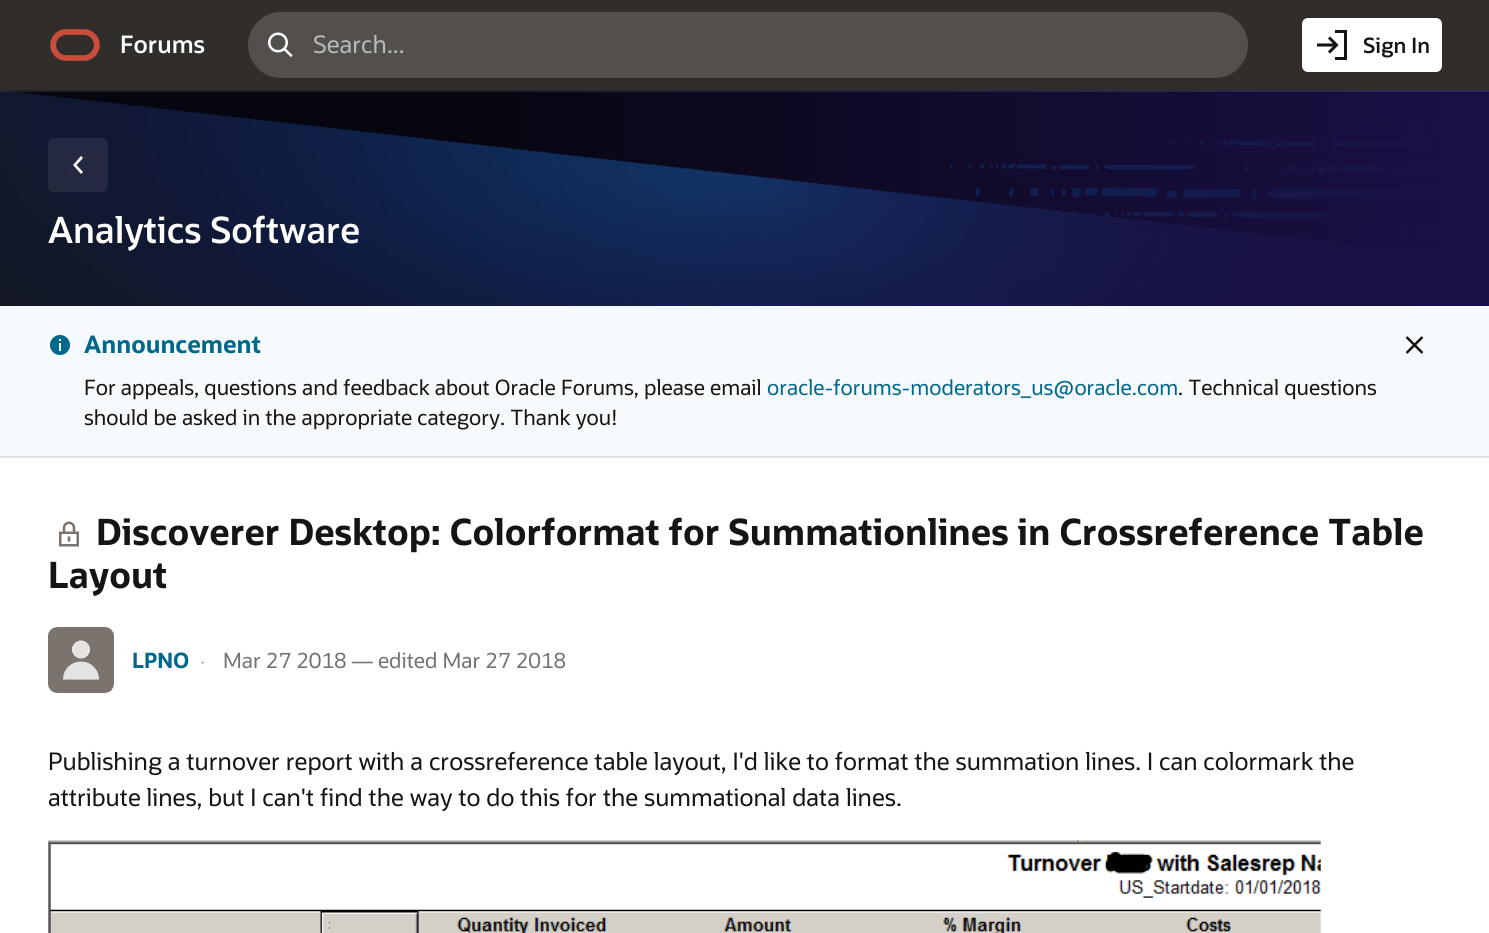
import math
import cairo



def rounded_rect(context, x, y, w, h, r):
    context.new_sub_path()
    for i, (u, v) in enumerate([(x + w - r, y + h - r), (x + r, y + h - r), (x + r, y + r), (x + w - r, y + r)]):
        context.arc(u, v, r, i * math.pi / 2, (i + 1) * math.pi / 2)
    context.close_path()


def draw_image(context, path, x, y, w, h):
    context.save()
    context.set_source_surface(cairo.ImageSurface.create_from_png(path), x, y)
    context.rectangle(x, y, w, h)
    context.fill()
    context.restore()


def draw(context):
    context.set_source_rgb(1, 1, 1)
    context.paint()
    draw_image(context, "images/4.png", 0, 90, 1489, 216)
    context.rectangle(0, 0, 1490, 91)
    context.set_source_rgba(1, 1, 1, 0.1)
    context.stroke()
    context.set_source_rgb(49 / 255, 45 / 255, 42 / 255)
    context.rectangle(0, 0, 1489, 90)
    context.fill()
    draw_image(context, "images/1.png", 50, 29, 50, 32)
    context.set_source_rgb(82 / 255, 79 / 255, 76 / 255)
    rounded_rect(context, 248, 12, 1000, 66, 33)
    context.fill()
    draw_image(context, "images/2.png", 268, 32, 25, 25)
    context.set_source_rgb(1, 1, 1)
    rounded_rect(context, 1302, 18, 140, 54, 6)
    context.fill()
    draw_image(context, "images/3.png", 1317, 30, 30, 30)
    context.set_source_rgba(251 / 255, 249 / 255, 248 / 255, 0.08)
    rounded_rect(context, 48, 138, 60, 54, 6)
    context.fill()
    context.set_source_rgb(1, 1, 1)
    context.new_path()
    context.move_to(83, 172)
    context.line_to(81, 174)
    context.line_to(73, 165)
    context.line_to(81, 156)
    context.line_to(83, 158)
    context.line_to(76.5, 165)
    context.close_path()
    context.fill()
    context.set_source_rgb(246 / 255, 250 / 255, 252 / 255)
    context.rectangle(0, 306, 1489, 150)
    context.fill()
    context.set_source_rgb(224 / 255, 227 / 255, 229 / 255)
    context.rectangle(0, 456, 1489, 2)
    context.fill()
    draw_image(context, "images/5.png", 50, 335, 20, 20)
    draw_image(context, "images/6.png", 1405, 336, 19, 18)
    draw_image(context, "images/7.png", 59, 521, 20, 26)
    draw_image(context, "images/8.png", 48, 627, 66, 66)
    draw_image(context, "images/9.png", 48, 840, 1273, 93)
    context.select_font_face("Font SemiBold")
    context.set_font_size(24)
    context.set_source_rgb(1, 1, 1)
    context.move_to(120, 53)
    context.show_text("Forums")
    context.select_font_face("Font")
    context.set_source_rgb(185 / 255, 185 / 255, 184 / 255)
    context.move_to(313, 53)
    context.show_text("Search...")
    context.select_font_face("Font SemiBold")
    context.set_font_size(21)
    context.set_source_rgb(22 / 255, 21 / 255, 19 / 255)
    context.move_to(1363, 53)
    context.show_text("Sign In")
    context.set_font_size(36)
    context.set_source_rgb(1, 1, 1)
    context.move_to(48, 243)
    context.show_text("Analytics Software")
    context.select_font_face("Font", cairo.FontSlant.NORMAL, cairo.FontWeight.BOLD)
    context.set_font_size(24)
    context.set_source_rgb(0, 104 / 255, 140 / 255)
    context.move_to(84, 353)
    context.show_text("Announcement")
    context.select_font_face("Font")
    context.set_font_size(21)
    context.set_source_rgb(22 / 255, 21 / 255, 19 / 255)
    context.move_to(84, 395)
    context.show_text("For appeals, questions and feedback about Oracle Forums, please email")
    context.set_source_rgb(0, 104 / 255, 140 / 255)
    context.move_to(767, 395)
    context.show_text("oracle-forums-moderators_us@oracle.com")
    context.set_source_rgb(22 / 255, 21 / 255, 19 / 255)
    context.move_to(1178, 395)
    context.show_text(". Technical questions")
    context.move_to(84, 425)
    context.show_text("should be asked in the appropriate category. Thank you!")
    context.select_font_face("Font", cairo.FontSlant.NORMAL, cairo.FontWeight.BOLD)
    context.set_font_size(36)
    context.move_to(96, 545)
    context.show_text("Discoverer Desktop: Colorformat for Summationlines in Crossreference Table")
    context.move_to(48, 588)
    context.show_text("Layout")
    context.set_font_size(21)
    context.set_source_rgb(0, 104 / 255, 140 / 255)
    context.move_to(132, 668)
    context.show_text("LPNO")
    context.select_font_face("Font")
    context.set_source_rgb(185 / 255, 185 / 255, 184 / 255)
    context.move_to(200, 668)
    context.show_text("·")
    context.set_source_rgb(115 / 255, 115 / 255, 113 / 255)
    context.move_to(223, 668)
    context.show_text("Mar 27 2018 — edited Mar 27 2018")
    context.set_font_size(24)
    context.set_source_rgb(22 / 255, 21 / 255, 19 / 255)
    context.move_to(48, 770)
    context.show_text("Publishing a turnover report with a crossreference table layout, I'd like to format the summation lines. I can colormark the")
    context.move_to(48, 806)
    context.show_text("attribute lines, but I can't find the way to do this for the summational data lines.")


surface = cairo.ImageSurface(cairo.Format.RGB24, 1489, 933)
context = cairo.Context(surface)
options = cairo.FontOptions()
options.set_hint_metrics(cairo.HintMetrics.OFF)
options.set_hint_style(cairo.HintStyle.NONE)
context.set_font_options(options)
context.set_miter_limit(4)
draw(context)
surface.write_to_png("out.png")
